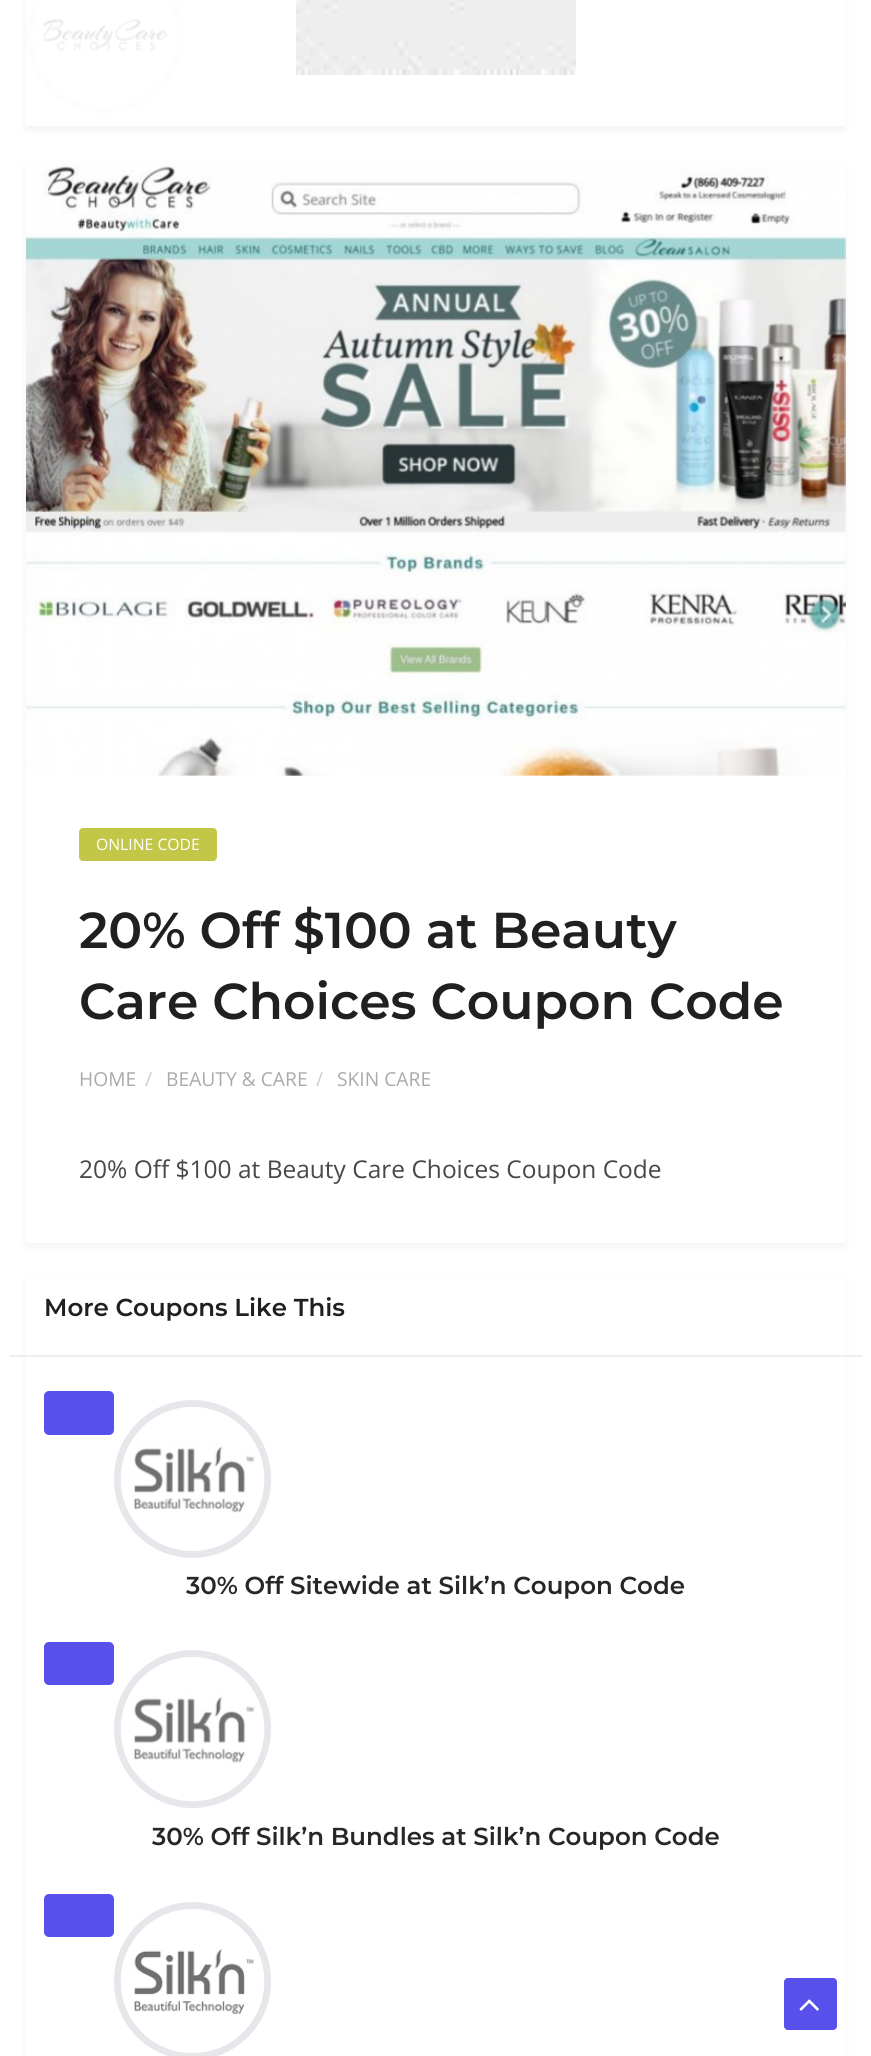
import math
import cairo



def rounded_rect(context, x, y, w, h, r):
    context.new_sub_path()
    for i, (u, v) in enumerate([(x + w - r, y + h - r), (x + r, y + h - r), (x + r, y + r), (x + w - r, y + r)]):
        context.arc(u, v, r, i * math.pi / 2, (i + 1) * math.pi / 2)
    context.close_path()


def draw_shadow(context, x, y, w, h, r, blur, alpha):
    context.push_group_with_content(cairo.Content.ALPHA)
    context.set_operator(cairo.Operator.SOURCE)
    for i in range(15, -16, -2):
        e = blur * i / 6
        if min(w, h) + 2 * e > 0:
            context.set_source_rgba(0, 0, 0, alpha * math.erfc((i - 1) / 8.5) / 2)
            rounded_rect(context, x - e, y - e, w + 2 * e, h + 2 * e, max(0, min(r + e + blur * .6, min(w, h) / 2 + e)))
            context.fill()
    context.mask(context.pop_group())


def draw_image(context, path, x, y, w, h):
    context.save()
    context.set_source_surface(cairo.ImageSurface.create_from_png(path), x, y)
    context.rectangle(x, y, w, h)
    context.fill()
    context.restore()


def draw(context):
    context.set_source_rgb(1, 1, 1)
    context.paint()
    context.set_source_rgb(0, 0, 0)
    draw_shadow(context, 26, -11, 819, 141, 0, 3.5, 0.05)
    context.set_source_rgb(1, 1, 1)
    context.rectangle(26, 0, 819, 126)
    context.fill()
    context.arc(105, 35, 75.5, 0, 2 * math.pi)
    context.set_source_rgb(229 / 255, 231 / 255, 235 / 255)
    context.set_line_width(7)
    context.stroke()
    draw_image(context, "images/1.png", 34, 18, 138, 89)
    context.set_source_rgba(1, 1, 1, 0.9)
    context.rectangle(26, 0, 158, 114)
    context.fill()
    draw_image(context, "images/2.png", 296, 0, 280, 75)
    context.set_source_rgb(0, 0, 0)
    draw_shadow(context, 26, 165, 819, 1081, 0, 3.5, 0.05)
    context.set_source_rgb(1, 1, 1)
    context.rectangle(26, 162, 819, 1081)
    context.fill()
    draw_image(context, "images/3.png", 26, 163, 820, 613)
    context.set_source_rgb(194 / 255, 199 / 255, 72 / 255)
    rounded_rect(context, 79, 828, 138, 33, 4)
    context.fill()
    context.set_source_rgb(0, 0, 0)
    draw_shadow(context, 26, 1281, 819, 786, 0, 3.5, 0.05)
    context.set_source_rgb(1, 1, 1)
    context.rectangle(26, 1278, 819, 778)
    context.fill()
    context.set_source_rgb(238 / 255, 238 / 255, 238 / 255)
    context.rectangle(9, 1355, 854, 2)
    context.fill()
    context.set_source_rgb(88 / 255, 80 / 255, 235 / 255)
    rounded_rect(context, 44, 1391, 70, 44, 5)
    context.fill()
    rounded_rect(context, 117.5, 1403.5, 150, 151, 75)
    context.set_source_rgb(229 / 255, 231 / 255, 235 / 255)
    context.stroke()
    draw_image(context, "images/4.png", 120, 1407, 145, 141)
    context.set_source_rgb(88 / 255, 80 / 255, 235 / 255)
    rounded_rect(context, 44, 1642, 70, 43, 5)
    context.fill()
    rounded_rect(context, 117.5, 1653.5, 150, 151, 75)
    context.set_source_rgb(229 / 255, 231 / 255, 235 / 255)
    context.stroke()
    draw_image(context, "images/5.png", 120, 1674, 145, 128)
    context.set_source_rgb(88 / 255, 80 / 255, 235 / 255)
    rounded_rect(context, 44, 1894, 70, 43, 5)
    context.fill()
    rounded_rect(context, 117.5, 1905.5, 150, 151, 75)
    context.set_source_rgb(229 / 255, 231 / 255, 235 / 255)
    context.stroke()
    draw_image(context, "images/6.png", 120, 1948, 145, 105)
    context.set_source_rgb(88 / 255, 80 / 255, 235 / 255)
    rounded_rect(context, 784, 1978, 53, 52, 4)
    context.fill()
    draw_image(context, "images/7.png", 799, 1999, 20, 12)
    context.select_font_face("Open Sans")
    context.set_font_size(15.75)
    context.set_source_rgb(1, 1, 1)
    context.move_to(96, 850)
    context.show_text("ONLINE CODE")
    context.select_font_face("Montserrat Thin")
    context.set_font_size(50.4)
    context.set_source_rgb(32 / 255, 32 / 255, 32 / 255)
    context.move_to(79, 948)
    context.show_text("20% Off $100 at Beauty")
    context.move_to(79, 1019)
    context.show_text("Care Choices Coupon Code")
    context.select_font_face("Open Sans")
    context.set_font_size(19.25)
    context.set_source_rgb(170 / 255, 170 / 255, 170 / 255)
    context.move_to(79, 1086)
    context.show_text("HOME")
    context.set_source_rgb(204 / 255, 204 / 255, 204 / 255)
    context.move_to(145, 1086)
    context.show_text("/")
    context.set_source_rgb(170 / 255, 170 / 255, 170 / 255)
    context.move_to(166, 1086)
    context.show_text("BEAUTY & CARE")
    context.set_source_rgb(204 / 255, 204 / 255, 204 / 255)
    context.move_to(316, 1086)
    context.show_text("/")
    context.set_source_rgb(170 / 255, 170 / 255, 170 / 255)
    context.move_to(337, 1086)
    context.show_text("SKIN CARE")
    context.set_font_size(24.5)
    context.set_source_rgb(72 / 255, 72 / 255, 72 / 255)
    context.move_to(79, 1178)
    context.show_text("20% Off $100 at Beauty Care Choices Coupon Code")
    context.select_font_face("Montserrat Thin")
    context.set_source_rgb(32 / 255, 32 / 255, 32 / 255)
    context.move_to(44, 1316)
    context.show_text("More Coupons Like This")
    context.set_source_rgb(39 / 255, 39 / 255, 39 / 255)
    context.move_to(186, 1594)
    context.show_text("30% Off Sitewide at Silk’n Coupon Code")
    context.move_to(152, 1845)
    context.show_text("30% Off Silk’n Bundles at Silk’n Coupon Code")


surface = cairo.ImageSurface(cairo.Format.RGB24, 871, 2056)
context = cairo.Context(surface)
options = cairo.FontOptions()
options.set_hint_metrics(cairo.HintMetrics.OFF)
options.set_hint_style(cairo.HintStyle.NONE)
context.set_font_options(options)
context.set_miter_limit(4)
draw(context)
surface.write_to_png("out.png")
